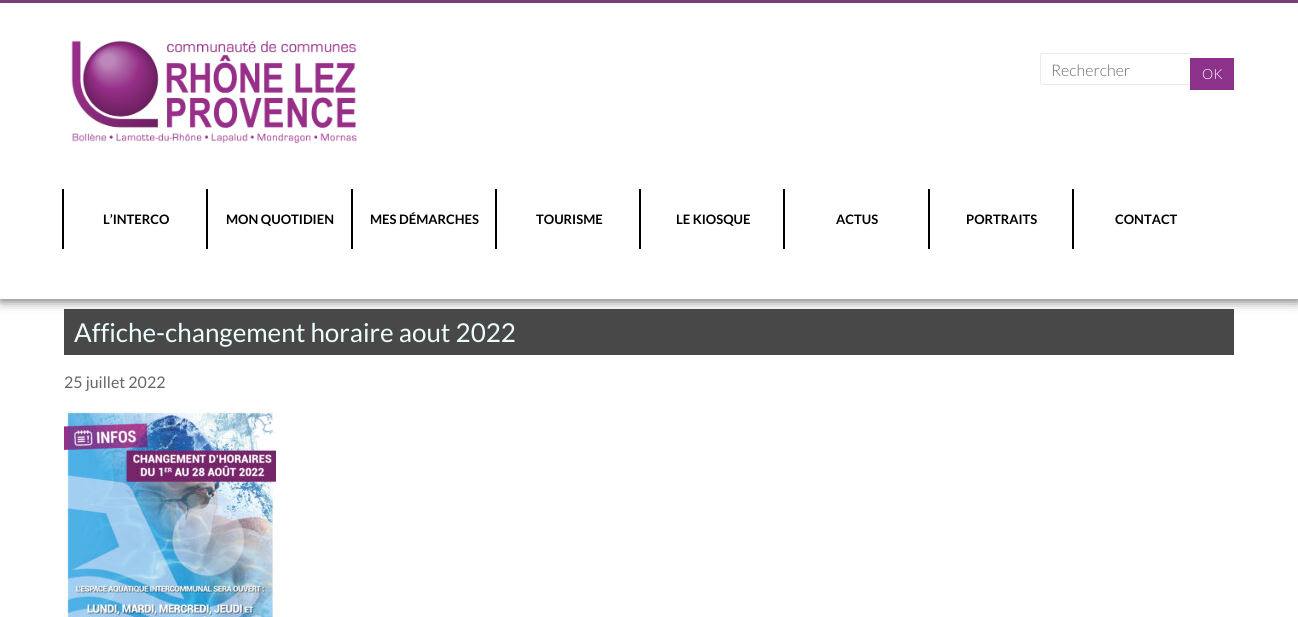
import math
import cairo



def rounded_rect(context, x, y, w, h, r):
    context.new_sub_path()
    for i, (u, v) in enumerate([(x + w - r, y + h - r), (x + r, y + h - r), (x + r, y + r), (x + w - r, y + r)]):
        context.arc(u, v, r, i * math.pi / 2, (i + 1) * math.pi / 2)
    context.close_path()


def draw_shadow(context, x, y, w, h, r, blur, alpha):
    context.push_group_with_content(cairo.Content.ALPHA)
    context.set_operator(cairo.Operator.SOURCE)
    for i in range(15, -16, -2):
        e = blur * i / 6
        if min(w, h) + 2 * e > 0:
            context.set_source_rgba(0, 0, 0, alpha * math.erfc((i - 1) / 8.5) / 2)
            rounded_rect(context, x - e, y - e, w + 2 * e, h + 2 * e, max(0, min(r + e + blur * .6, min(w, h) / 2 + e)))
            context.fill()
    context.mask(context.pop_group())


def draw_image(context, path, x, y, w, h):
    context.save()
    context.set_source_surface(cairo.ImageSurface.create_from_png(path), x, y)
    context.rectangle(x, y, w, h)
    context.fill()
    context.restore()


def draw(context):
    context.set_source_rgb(1, 1, 1)
    context.paint()
    context.set_source_rgb(140 / 255, 50 / 255, 138 / 255)
    context.rectangle(0, 0, 1298, 3)
    context.fill()
    context.save()
    context.set_fill_rule(cairo.FillRule.EVEN_ODD)
    context.new_path()
    context.move_to(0, 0)
    context.line_to(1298, 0)
    context.line_to(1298, 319)
    context.line_to(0, 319)
    context.close_path()
    context.move_to(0, 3)
    context.line_to(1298, 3)
    context.line_to(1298, 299)
    context.line_to(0, 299)
    context.close_path()
    context.clip()
    context.set_source_rgb(85 / 255, 85 / 255, 85 / 255)
    draw_shadow(context, 1, 4, 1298, 296, 0, 6, 1)
    context.restore()
    draw_image(context, "images/1.png", 71, 40, 286, 103)
    context.set_source_rgb(234 / 255, 234 / 255, 234 / 255)
    context.set_fill_rule(cairo.FillRule.EVEN_ODD)
    context.new_path()
    context.move_to(1043, 53)
    context.line_to(1190, 53)
    context.line_to(1190, 85)
    context.line_to(1043, 85)
    context.curve_to(1041, 85, 1040, 84, 1040, 82)
    context.line_to(1040, 56)
    context.curve_to(1040, 54, 1041, 53, 1043, 53)
    context.close_path()
    context.move_to(1043, 54)
    context.line_to(1190, 54)
    context.line_to(1190, 84)
    context.line_to(1043, 84)
    context.curve_to(1042, 84, 1041, 83, 1041, 82)
    context.line_to(1041, 56)
    context.curve_to(1041, 55, 1042, 54, 1043, 54)
    context.close_path()
    context.fill()
    context.set_source_rgb(140 / 255, 50 / 255, 138 / 255)
    context.rectangle(1190, 58, 44, 32)
    context.fill()
    context.set_source_rgb(0, 0, 0)
    context.rectangle(62, 189, 2, 60)
    context.fill()
    context.rectangle(206, 189, 2, 60)
    context.fill()
    context.rectangle(351, 189, 2, 60)
    context.fill()
    context.rectangle(495, 189, 2, 60)
    context.fill()
    context.rectangle(639, 189, 2, 60)
    context.fill()
    context.rectangle(783, 189, 2, 60)
    context.fill()
    context.rectangle(928, 189, 2, 60)
    context.fill()
    context.rectangle(1072, 189, 2, 60)
    context.fill()
    context.set_source_rgb(72 / 255, 72 / 255, 72 / 255)
    context.rectangle(64, 309, 1170, 46)
    context.fill()
    draw_image(context, "images/2.png", 64, 409, 212, 208)
    context.select_font_face("Lato Light")
    context.set_font_size(16)
    context.set_source_rgb(100 / 255, 105 / 255, 112 / 255)
    context.move_to(1051, 76)
    context.show_text("Rechercher")
    context.set_font_size(14)
    context.set_source_rgb(1, 1, 1)
    context.move_to(1202, 79)
    context.show_text("OK")
    context.select_font_face("Lato", cairo.FontSlant.NORMAL, cairo.FontWeight.BOLD)
    context.set_font_size(13)
    context.set_source_rgb(0, 0, 0)
    context.move_to(103, 224)
    context.show_text("L’INTERCO")
    context.move_to(226, 224)
    context.show_text("MON QUOTIDIEN")
    context.move_to(370, 224)
    context.show_text("MES DÉMARCHES")
    context.move_to(536, 224)
    context.show_text("TOURISME")
    context.move_to(676, 224)
    context.show_text("LE KIOSQUE")
    context.move_to(836, 224)
    context.show_text("ACTUS")
    context.move_to(966, 224)
    context.show_text("PORTRAITS")
    context.move_to(1115, 224)
    context.show_text("CONTACT")
    context.select_font_face("Lato")
    context.set_font_size(26)
    context.set_source_rgb(237 / 255, 253 / 255, 253 / 255)
    context.move_to(74, 342)
    context.show_text("Affiche-changement horaire aout 2022")
    context.set_font_size(16)
    context.set_source_rgb(102 / 255, 102 / 255, 102 / 255)
    context.move_to(64, 388)
    context.show_text("25 juillet 2022")


surface = cairo.ImageSurface(cairo.Format.RGB24, 1298, 617)
context = cairo.Context(surface)
options = cairo.FontOptions()
options.set_hint_metrics(cairo.HintMetrics.OFF)
options.set_hint_style(cairo.HintStyle.NONE)
context.set_font_options(options)
context.set_miter_limit(4)
draw(context)
surface.write_to_png("out.png")
